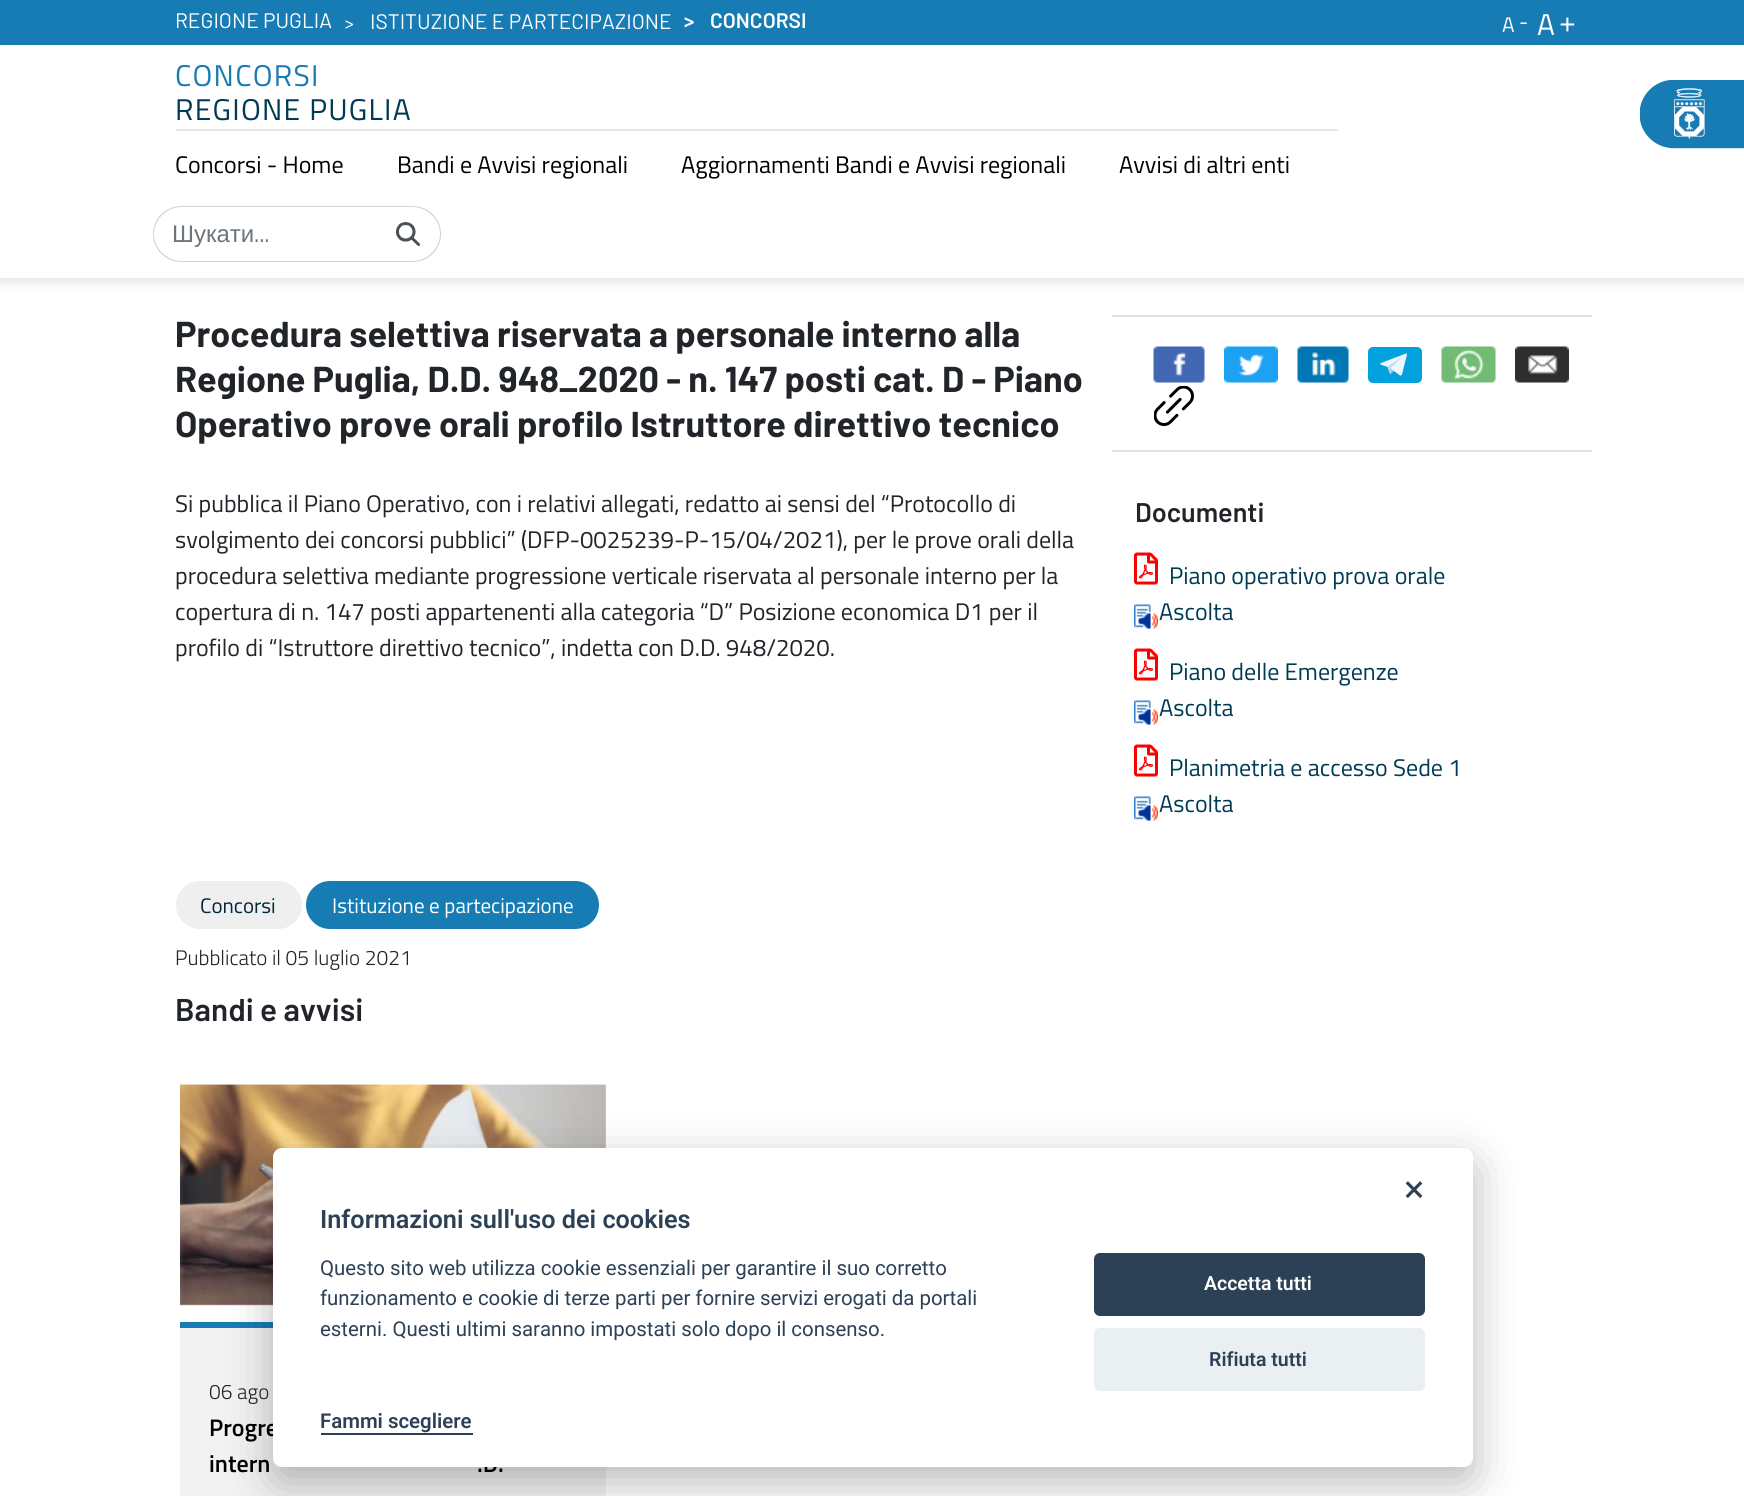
import math
import cairo



def draw_spaced(context, x, y, s, letter, word):
    context.move_to(x, y)
    for ch in s:
        context.show_text(ch)
        context.rel_move_to(letter + word * (ch == ' '), 0)


def rounded_rect(context, x, y, w, h, r):
    context.new_sub_path()
    for i, (u, v) in enumerate([(x + w - r, y + h - r), (x + r, y + h - r), (x + r, y + r), (x + w - r, y + r)]):
        context.arc(u, v, r, i * math.pi / 2, (i + 1) * math.pi / 2)
    context.close_path()


def draw_shadow(context, x, y, w, h, r, blur, alpha):
    context.push_group_with_content(cairo.Content.ALPHA)
    context.set_operator(cairo.Operator.SOURCE)
    for i in range(15, -16, -2):
        e = blur * i / 6
        if min(w, h) + 2 * e > 0:
            context.set_source_rgba(0, 0, 0, alpha * math.erfc((i - 1) / 8.5) / 2)
            rounded_rect(context, x - e, y - e, w + 2 * e, h + 2 * e, max(0, min(r + e + blur * .6, min(w, h) / 2 + e)))
            context.fill()
    context.mask(context.pop_group())


def draw_image(context, path, x, y, w, h):
    context.save()
    context.set_source_surface(cairo.ImageSurface.create_from_png(path), x, y)
    context.rectangle(x, y, w, h)
    context.fill()
    context.restore()


def draw(context):
    context.set_source_rgb(1, 1, 1)
    context.paint()
    context.set_source_rgb(0, 0, 0)
    draw_shadow(context, 0, 2, 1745, 277, 0, 7.5, 0.16)
    context.set_source_rgb(24 / 255, 124 / 255, 180 / 255)
    context.rectangle(0, 0, 1744, 45)
    context.fill()
    context.set_source_rgb(1, 1, 1)
    context.rectangle(0, 45, 1744, 233)
    context.fill()
    draw_image(context, "images/1.png", 1640, 80, 104, 69)
    context.set_source_rgb(230 / 255, 230 / 255, 230 / 255)
    context.rectangle(176, 129, 1162, 2)
    context.fill()
    context.set_source_rgb(206 / 255, 212 / 255, 218 / 255)
    context.set_fill_rule(cairo.FillRule.EVEN_ODD)
    context.new_path()
    context.move_to(182, 206)
    context.line_to(376, 206)
    context.line_to(376, 262)
    context.line_to(182, 262)
    context.curve_to(166, 262, 153, 250, 153, 234)
    context.curve_to(153, 218, 166, 206, 182, 206)
    context.close_path()
    context.move_to(182, 207)
    context.line_to(376, 207)
    context.line_to(376, 261)
    context.line_to(182, 261)
    context.curve_to(167, 261, 154, 249, 154, 234)
    context.curve_to(154, 219, 167, 207, 182, 207)
    context.close_path()
    context.fill()
    context.new_path()
    context.move_to(376, 206)
    context.line_to(412, 206)
    context.curve_to(428, 206, 441, 218, 441, 234)
    context.curve_to(441, 250, 428, 262, 412, 262)
    context.line_to(376, 262)
    context.close_path()
    context.move_to(376, 207)
    context.line_to(412, 207)
    context.curve_to(427, 207, 440, 219, 440, 234)
    context.curve_to(440, 249, 427, 261, 412, 261)
    context.line_to(376, 261)
    context.close_path()
    context.fill()
    draw_image(context, "images/2.png", 396, 222, 24, 24)
    context.set_source_rgb(222 / 255, 226 / 255, 230 / 255)
    context.rectangle(1112, 315, 480, 2)
    context.fill()
    context.rectangle(1112, 450, 480, 2)
    context.fill()
    draw_image(context, "images/3.png", 1153, 346, 52, 37)
    draw_image(context, "images/4.png", 1224, 346, 54, 37)
    draw_image(context, "images/5.png", 1297, 346, 52, 37)
    draw_image(context, "images/6.png", 1368, 347, 54, 36)
    draw_image(context, "images/7.png", 1441, 346, 55, 37)
    draw_image(context, "images/8.png", 1515, 346, 54, 37)
    draw_image(context, "images/9.png", 1154, 386, 40, 40)
    draw_image(context, "images/10.png", 1134, 552, 24, 33)
    draw_image(context, "images/11.png", 1134, 604, 24, 25)
    draw_image(context, "images/10.png", 1134, 648, 24, 33)
    draw_image(context, "images/11.png", 1134, 700, 24, 25)
    draw_image(context, "images/10.png", 1134, 744, 24, 33)
    draw_image(context, "images/11.png", 1134, 796, 24, 25)
    context.set_source_rgb(239 / 255, 239 / 255, 239 / 255)
    rounded_rect(context, 176, 881, 126, 48, 24)
    context.fill()
    context.set_source_rgb(24 / 255, 124 / 255, 180 / 255)
    rounded_rect(context, 306, 881, 293, 48, 24)
    context.fill()
    draw_image(context, "images/12.png", 180, 1084, 426, 222)
    context.set_source_rgb(242 / 255, 242 / 255, 242 / 255)
    context.rectangle(180, 1328, 426, 168)
    context.fill()
    context.set_source_rgb(24 / 255, 124 / 255, 180 / 255)
    context.rectangle(180, 1322, 93, 6)
    context.fill()
    context.set_source_rgb(2 / 255, 2 / 255, 3 / 255)
    draw_shadow(context, 273, 1163, 1200, 319, 9, 22.5, 0.28)
    context.select_font_face("Barlow")
    context.set_font_size(21)
    context.set_source_rgb(1, 1, 1)
    context.move_to(175, 28)
    context.show_text("REGIONE PUGLIA")
    context.select_font_face("Titillium Web")
    context.set_font_size(18)
    context.move_to(344, 29)
    context.show_text(">")
    context.select_font_face("Barlow")
    context.set_font_size(21)
    context.move_to(370, 29)
    context.show_text("ISTITUZIONE E PARTECIPAZIONE")
    context.select_font_face("Barlow SemiBold")
    context.move_to(684, 28)
    context.show_text(">")
    context.move_to(710, 28)
    context.show_text("CONCORSI")
    context.select_font_face("Titillium Web")
    context.move_to(1502, 32)
    context.show_text("A")
    context.move_to(1519, 29)
    context.show_text("-")
    context.set_font_size(30)
    context.move_to(1537, 35)
    context.show_text("A")
    context.move_to(1559, 32)
    context.show_text("+")
    context.set_source_rgb(24 / 255, 124 / 255, 180 / 255)
    draw_spaced(context, 175, 86, "CONCORSI", 1.25, 0)
    context.set_source_rgb(0, 58 / 255, 84 / 255)
    draw_spaced(context, 175, 120, "REGIONE PUGLIA", 1.25, 0)
    context.set_font_size(24)
    context.set_source_rgb(0, 0, 0)
    context.move_to(175, 173)
    context.show_text("Concorsi - Home")
    context.move_to(397, 173)
    context.show_text("Bandi e Avvisi regionali")
    context.move_to(681, 173)
    context.show_text("Aggiornamenti Bandi e Avvisi regionali")
    context.move_to(1119, 173)
    context.show_text("Avvisi di altri enti")
    context.select_font_face("Liberation Sans")
    context.set_source_rgb(108 / 255, 117 / 255, 125 / 255)
    context.move_to(172, 242)
    context.show_text("Шукати")
    context.select_font_face("Titillium Web")
    context.move_to(254, 242)
    context.show_text("...")
    context.select_font_face("Barlow", cairo.FontSlant.NORMAL, cairo.FontWeight.BOLD)
    context.set_font_size(36)
    context.set_source_rgb(33 / 255, 37 / 255, 41 / 255)
    context.move_to(175, 347)
    context.show_text("Procedura selettiva riservata a personale interno alla")
    context.move_to(175, 392)
    context.show_text("Regione Puglia, D.D. 948_2020 - n. 147 posti cat. D - Piano")
    context.move_to(175, 437)
    context.show_text("Operativo prove orali profilo Istruttore direttivo tecnico")
    context.select_font_face("Titillium Web")
    context.set_font_size(24)
    context.move_to(175, 512)
    context.show_text("Si pubblica il Piano Operativo, con i relativi allegati, redatto ai sensi del “Protocollo di")
    context.move_to(175, 548)
    context.show_text("svolgimento dei concorsi pubblici” (DFP-0025239-P-15/04/2021), per le prove orali della")
    context.move_to(175, 584)
    context.show_text("procedura selettiva mediante progressione verticale riservata al personale interno per la")
    context.move_to(175, 620)
    context.show_text("copertura di n. 147 posti appartenenti alla categoria “D” Posizione economica D1 per il")
    context.move_to(175, 656)
    context.show_text("profilo di “Istruttore direttivo tecnico”, indetta con D.D. 948/2020.")
    context.select_font_face("Barlow SemiBold")
    context.set_font_size(27)
    context.move_to(1135, 522)
    context.show_text("Documenti")
    context.select_font_face("Titillium Web")
    context.set_font_size(24)
    context.set_source_rgb(0, 58 / 255, 84 / 255)
    context.move_to(1169, 584)
    context.show_text("Piano operativo prova orale")
    context.move_to(1159, 620)
    context.show_text("Ascolta")
    context.move_to(1169, 680)
    context.show_text("Piano delle Emergenze")
    context.move_to(1159, 716)
    context.show_text("Ascolta")
    context.move_to(1169, 776)
    context.show_text("Planimetria e accesso Sede 1")
    context.move_to(1159, 812)
    context.show_text("Ascolta")
    context.set_font_size(21)
    context.set_source_rgb(1 / 255, 40 / 255, 58 / 255)
    context.move_to(200, 913)
    context.show_text("Concorsi")
    context.set_source_rgb(1, 1, 1)
    context.move_to(332, 913)
    context.show_text("Istituzione e partecipazione")
    context.select_font_face("Titillium Web Light")
    context.set_source_rgb(33 / 255, 37 / 255, 41 / 255)
    context.move_to(175, 965)
    context.show_text("Pubblicato il 05 luglio 2021")
    context.select_font_face("Barlow SemiBold")
    context.set_font_size(31.5)
    context.move_to(175, 1021)
    context.show_text("Bandi e avvisi")
    context.select_font_face("Titillium Web Light")
    context.set_font_size(21)
    context.move_to(209, 1399)
    context.show_text("06 ago")
    context.select_font_face("Titillium Web SemiBold")
    context.set_font_size(24)
    context.set_source_rgb(0, 0, 0)
    context.move_to(209, 1436)
    context.show_text("Progre")
    context.move_to(209, 1472)
    context.show_text("intern")
    context.move_to(477, 1472)
    context.show_text(".D.")
    context.set_source_rgb(1, 1, 1)
    rounded_rect(context, 273, 1148, 1200, 319, 9)
    context.fill()
    context.select_font_face("Roboto")
    context.set_font_size(38)
    context.set_source_rgb(45 / 255, 65 / 255, 86 / 255)
    context.move_to(1404, 1202)
    context.show_text("×")
    context.select_font_face("Roboto SemiBold")
    context.set_font_size(25.25)
    context.move_to(320, 1228)
    context.show_text("Informazioni sull'uso dei cookies")
    context.select_font_face("Roboto")
    context.set_font_size(20.4)
    context.move_to(320, 1275)
    context.show_text("Questo sito web utilizza cookie essenziali per garantire il suo corretto")
    context.move_to(320, 1305)
    context.show_text("funzionamento e cookie di terze parti per fornire servizi erogati da portali")
    context.move_to(320, 1336)
    context.show_text("esterni. Questi ultimi saranno impostati solo dopo il consenso.")
    context.select_font_face("Roboto SemiBold")
    context.move_to(320, 1428)
    context.show_text("Fammi scegliere")
    context.rectangle(321, 1433, 152, 2)
    context.fill()
    rounded_rect(context, 1094, 1253, 331, 63, 6)
    context.fill()
    context.set_font_size(19.5)
    context.set_source_rgb(1, 1, 1)
    context.move_to(1204, 1290)
    context.show_text("Accetta tutti")
    context.set_source_rgb(234 / 255, 239 / 255, 242 / 255)
    rounded_rect(context, 1094, 1328, 331, 63, 6)
    context.fill()
    context.set_source_rgb(45 / 255, 65 / 255, 86 / 255)
    context.move_to(1209, 1366)
    context.show_text("Rifiuta tutti")


surface = cairo.ImageSurface(cairo.Format.RGB24, 1744, 1496)
context = cairo.Context(surface)
options = cairo.FontOptions()
options.set_hint_metrics(cairo.HintMetrics.OFF)
options.set_hint_style(cairo.HintStyle.NONE)
context.set_font_options(options)
context.set_miter_limit(4)
draw(context)
surface.write_to_png("out.png")
